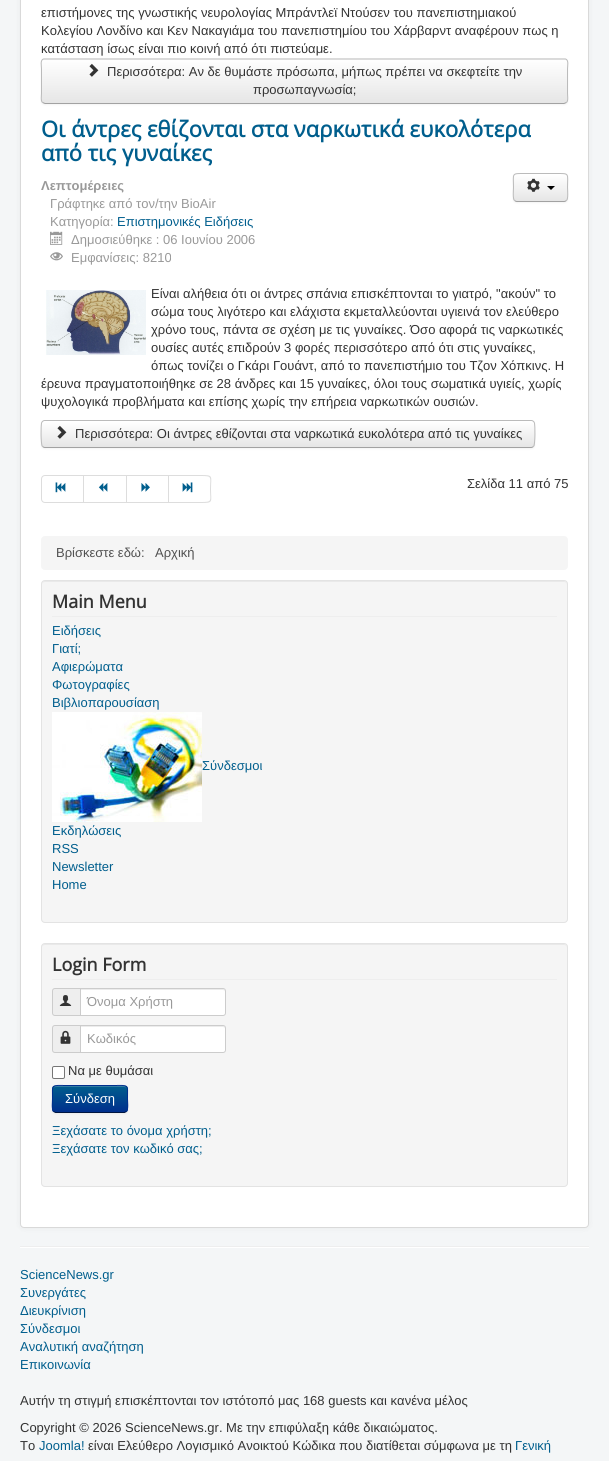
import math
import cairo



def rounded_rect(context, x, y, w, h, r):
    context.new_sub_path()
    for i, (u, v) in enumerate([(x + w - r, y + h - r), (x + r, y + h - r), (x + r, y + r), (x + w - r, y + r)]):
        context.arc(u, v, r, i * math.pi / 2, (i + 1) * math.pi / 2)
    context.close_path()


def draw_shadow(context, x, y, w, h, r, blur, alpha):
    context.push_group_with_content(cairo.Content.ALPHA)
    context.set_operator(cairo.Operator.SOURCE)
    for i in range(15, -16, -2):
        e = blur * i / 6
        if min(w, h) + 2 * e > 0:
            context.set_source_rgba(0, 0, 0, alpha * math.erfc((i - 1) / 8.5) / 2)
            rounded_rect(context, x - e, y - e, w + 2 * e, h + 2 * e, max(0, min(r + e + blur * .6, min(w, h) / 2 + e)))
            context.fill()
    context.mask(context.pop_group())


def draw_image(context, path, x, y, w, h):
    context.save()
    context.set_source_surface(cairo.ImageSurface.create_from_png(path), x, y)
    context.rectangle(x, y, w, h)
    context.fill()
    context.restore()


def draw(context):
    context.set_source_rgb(244 / 255, 246 / 255, 247 / 255)
    context.paint()
    context.set_source_rgb(0, 0, 0)
    draw_shadow(context, 20, -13, 569, 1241, 4, 3, 0.05)
    context.set_source_rgb(1, 1, 1)
    rounded_rect(context, 20, -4, 569, 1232, 4)
    context.fill()
    rounded_rect(context, 20.5, -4.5, 568, 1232, 3.5)
    context.set_source_rgba(0, 0, 0, 0.15)
    context.set_line_width(1)
    context.stroke()
    context.set_source_rgb(0, 0, 0)
    draw_shadow(context, 41, 59, 527, 46, 4, 1, 0.05)
    context.set_source_rgb(245 / 255, 245 / 255, 245 / 255)
    rounded_rect(context, 41, 58, 527, 46, 4)
    context.fill()
    context.save()
    rounded_rect(context, 41, 58, 527, 46, 4)
    context.clip()
    gradient = cairo.LinearGradient(305, 59, 305, 103)
    gradient.add_color_stop_rgba(0, 1, 1, 1, 1)
    gradient.add_color_stop_rgba(1, 230 / 255, 230 / 255, 230 / 255, 1)
    context.set_source(gradient)
    context.rectangle(41, 59, 527, 44)
    context.fill()
    context.restore()
    context.new_path()
    context.move_to(566.5, 102.5)
    context.line_to(564, 103.5)
    context.line_to(45, 103.5)
    context.line_to(42.5, 102.5)
    context.set_source_rgb(162 / 255, 162 / 255, 162 / 255)
    context.stroke()
    context.new_path()
    context.move_to(42.5, 102.5)
    context.curve_to(40.5, 100.5, 41.5, 95.5, 41.5, 93.5)
    context.line_to(41.5, 68.5)
    context.curve_to(41.5, 66, 40, 60, 43.5, 59)
    context.line_to(565.5, 59)
    context.curve_to(569, 60, 567.5, 66, 567.5, 68.5)
    context.line_to(567.5, 93.5)
    context.curve_to(567.5, 95.5, 568.5, 100.5, 566.5, 102.5)
    context.set_source_rgb(187 / 255, 187 / 255, 187 / 255)
    context.stroke()
    draw_image(context, "images/1.png", 89, 63, 10, 14)
    draw_image(context, "images/2.png", 50, 231, 13, 14)
    draw_image(context, "images/3.png", 50, 252, 13, 9)
    context.set_source_rgb(0, 0, 0)
    draw_shadow(context, 513, 174, 55, 29, 4, 1, 0.05)
    context.set_source_rgb(245 / 255, 245 / 255, 245 / 255)
    rounded_rect(context, 513, 173, 55, 29, 4)
    context.fill()
    context.save()
    rounded_rect(context, 513, 173, 55, 29, 4)
    context.clip()
    gradient = cairo.LinearGradient(541, 174, 541, 201)
    gradient.add_color_stop_rgba(0, 1, 1, 1, 1)
    gradient.add_color_stop_rgba(1, 230 / 255, 230 / 255, 230 / 255, 1)
    context.set_source(gradient)
    context.rectangle(513, 174, 55, 27)
    context.fill()
    context.restore()
    context.set_source_rgb(1, 1, 1)
    context.new_path()
    context.move_to(517, 175)
    context.line_to(564, 175)
    context.curve_to(566, 175, 567, 176, 567, 178)
    context.curve_to(567, 172, 561, 174, 556, 174)
    context.line_to(525, 174)
    context.curve_to(520, 174, 514, 172, 514, 178)
    context.curve_to(514, 176, 515, 175, 517, 175)
    context.close_path()
    context.fill()
    context.new_path()
    context.move_to(566.5, 200.5)
    context.curve_to(566, 201, 565, 201.5, 564, 201.5)
    context.line_to(517, 201.5)
    context.curve_to(516, 201.5, 515, 201, 514.5, 200.5)
    context.set_source_rgb(162 / 255, 162 / 255, 162 / 255)
    context.stroke()
    context.new_path()
    context.move_to(514.5, 200.5)
    context.curve_to(512.5, 198.5, 513.5, 190, 513.5, 187.5)
    context.curve_to(513.5, 173, 511, 173.5, 525, 173.5)
    context.line_to(556, 173.5)
    context.curve_to(570, 173.5, 567.5, 173, 567.5, 187.5)
    context.curve_to(567.5, 190, 568.5, 198.5, 566.5, 200.5)
    context.set_source_rgb(187 / 255, 187 / 255, 187 / 255)
    context.stroke()
    draw_image(context, "images/4.png", 527, 178, 13, 14)
    context.set_source_rgb(0, 0, 0)
    context.new_path()
    context.move_to(547, 186)
    context.line_to(555, 186)
    context.line_to(551, 190)
    context.close_path()
    context.fill()
    draw_image(context, "images/5.png", 46, 290, 100, 65)
    context.set_source_rgb(0, 0, 0)
    draw_shadow(context, 41, 421, 494, 28, 4, 1, 0.05)
    context.save()
    rounded_rect(context, 41, 420, 494, 28, 4)
    context.clip()
    gradient = cairo.LinearGradient(288, 421, 288, 447)
    gradient.add_color_stop_rgba(0, 1, 1, 1, 1)
    gradient.add_color_stop_rgba(1, 230 / 255, 230 / 255, 230 / 255, 1)
    context.set_source(gradient)
    context.rectangle(41, 421, 494, 26)
    context.fill()
    context.restore()
    context.new_path()
    context.move_to(533.5, 446.5)
    context.curve_to(533, 447, 532, 447.5, 531, 447.5)
    context.line_to(45, 447.5)
    context.curve_to(44, 447.5, 43, 447, 42.5, 446.5)
    context.set_source_rgb(162 / 255, 162 / 255, 162 / 255)
    context.stroke()
    context.new_path()
    context.move_to(42.5, 446.5)
    context.curve_to(40.5, 444.5, 41, 425, 41.5, 423)
    context.curve_to(42, 421.5, 43.5, 420.5, 44.5, 420.5)
    context.line_to(531.5, 420.5)
    context.curve_to(532.5, 420.5, 534, 421.5, 534.5, 423)
    context.curve_to(535, 425, 535.5, 444.5, 533.5, 446.5)
    context.set_source_rgb(187 / 255, 187 / 255, 187 / 255)
    context.stroke()
    draw_image(context, "images/6.png", 57, 425, 10, 14)
    context.new_path()
    context.move_to(45, 475.5)
    context.line_to(83.5, 475.5)
    context.line_to(83.5, 502.5)
    context.line_to(45, 502.5)
    context.curve_to(43, 502.5, 41.5, 501, 41.5, 499)
    context.line_to(41.5, 479)
    context.curve_to(41.5, 477, 43, 475.5, 45, 475.5)
    context.close_path()
    context.set_source_rgb(221 / 255, 221 / 255, 221 / 255)
    context.stroke()
    draw_image(context, "images/7.png", 55, 482, 11, 11)
    context.rectangle(84, 475, 85, 1)
    context.fill()
    context.rectangle(126, 475, 1, 28)
    context.fill()
    context.rectangle(84, 502, 43, 1)
    context.fill()
    draw_image(context, "images/8.png", 98, 483, 10, 9)
    context.rectangle(168, 475, 1, 28)
    context.fill()
    context.rectangle(127, 502, 42, 1)
    context.fill()
    draw_image(context, "images/9.png", 141, 483, 9, 9)
    context.set_fill_rule(cairo.FillRule.EVEN_ODD)
    context.new_path()
    context.move_to(169, 475)
    context.line_to(201, 475)
    context.curve_to(214, 475, 211, 476, 211, 489)
    context.curve_to(211, 502, 214, 503, 201, 503)
    context.line_to(169, 503)
    context.close_path()
    context.move_to(169, 476)
    context.line_to(201, 476)
    context.curve_to(213, 476, 210, 477, 210, 489)
    context.curve_to(210, 501, 213, 502, 201, 502)
    context.line_to(169, 502)
    context.close_path()
    context.fill()
    draw_image(context, "images/10.png", 182, 482, 11, 11)
    context.set_source_rgb(245 / 255, 245 / 255, 245 / 255)
    rounded_rect(context, 41, 536, 527, 34, 4)
    context.fill()
    rounded_rect(context, 41, 580, 527, 343, 4)
    context.fill()
    context.set_source_rgb(233 / 255, 233 / 255, 233 / 255)
    context.set_fill_rule(cairo.FillRule.WINDING)
    context.new_path()
    context.move_to(45, 582)
    context.line_to(564, 582)
    context.curve_to(566, 582, 567, 583, 567, 585)
    context.line_to(566, 582)
    context.line_to(564, 581)
    context.line_to(45, 581)
    context.curve_to(43, 581, 42, 583, 42, 585)
    context.curve_to(42, 583, 43, 582, 45, 582)
    context.close_path()
    context.fill()
    rounded_rect(context, 41.5, 580.5, 526, 342, 3.5)
    context.set_source_rgb(227 / 255, 227 / 255, 227 / 255)
    context.stroke()
    context.set_source_rgb(238 / 255, 238 / 255, 238 / 255)
    context.rectangle(52, 616, 505, 1)
    context.fill()
    draw_image(context, "images/11.png", 52, 712, 150, 110)
    context.set_source_rgb(245 / 255, 245 / 255, 245 / 255)
    rounded_rect(context, 41, 943, 527, 244, 4)
    context.fill()
    context.set_source_rgb(233 / 255, 233 / 255, 233 / 255)
    context.new_path()
    context.move_to(45, 945)
    context.line_to(564, 945)
    context.curve_to(566, 945, 567, 946, 567, 948)
    context.line_to(566, 945)
    context.line_to(564, 944)
    context.line_to(45, 944)
    context.curve_to(43, 944, 42, 946, 42, 948)
    context.curve_to(42, 946, 43, 945, 45, 945)
    context.close_path()
    context.fill()
    rounded_rect(context, 41.5, 943.5, 526, 243, 3.5)
    context.set_source_rgb(227 / 255, 227 / 255, 227 / 255)
    context.stroke()
    context.set_source_rgb(238 / 255, 238 / 255, 238 / 255)
    context.rectangle(52, 979, 505, 1)
    context.fill()
    context.new_path()
    context.move_to(55, 988.5)
    context.line_to(80.5, 988.5)
    context.line_to(80.5, 1015.5)
    context.line_to(55, 1015.5)
    context.curve_to(53.5, 1015.5, 52.5, 1014.5, 52.5, 1013)
    context.line_to(52.5, 991)
    context.curve_to(52.5, 989.5, 53.5, 988.5, 55, 988.5)
    context.close_path()
    context.fill_preserve()
    context.set_source_rgb(204 / 255, 204 / 255, 204 / 255)
    context.stroke()
    draw_image(context, "images/12.png", 59, 995, 13, 11)
    context.set_source_rgb(1, 1, 1)
    context.new_path()
    context.move_to(80, 988)
    context.line_to(223, 988)
    context.curve_to(224.5, 988, 226, 989.5, 226, 991)
    context.line_to(226, 1013)
    context.curve_to(226, 1014.5, 224.5, 1016, 223, 1016)
    context.line_to(80, 1016)
    context.close_path()
    context.fill()
    context.set_source_rgb(236 / 255, 236 / 255, 236 / 255)
    context.new_path()
    context.move_to(81, 990)
    context.line_to(223, 990)
    context.curve_to(224, 990, 225, 991, 225, 992)
    context.curve_to(225, 991, 225, 989, 223, 989)
    context.line_to(81, 989)
    context.close_path()
    context.fill()
    context.new_path()
    context.move_to(80.5, 988.5)
    context.line_to(223, 988.5)
    context.curve_to(224.5, 988.5, 225.5, 989.5, 225.5, 991)
    context.line_to(225.5, 1013)
    context.curve_to(225.5, 1014.5, 224.5, 1015.5, 223, 1015.5)
    context.line_to(80.5, 1015.5)
    context.close_path()
    context.set_source_rgb(204 / 255, 204 / 255, 204 / 255)
    context.stroke()
    context.set_source_rgb(238 / 255, 238 / 255, 238 / 255)
    context.new_path()
    context.move_to(55, 1025.5)
    context.line_to(80.5, 1025.5)
    context.line_to(80.5, 1052.5)
    context.line_to(55, 1052.5)
    context.curve_to(53.5, 1052.5, 52.5, 1051.5, 52.5, 1050)
    context.line_to(52.5, 1028)
    context.curve_to(52.5, 1026.5, 53.5, 1025.5, 55, 1025.5)
    context.close_path()
    context.fill_preserve()
    context.set_source_rgb(204 / 255, 204 / 255, 204 / 255)
    context.stroke()
    draw_image(context, "images/13.png", 60, 1030, 11, 14)
    context.set_source_rgb(1, 1, 1)
    context.new_path()
    context.move_to(80, 1025)
    context.line_to(223, 1025)
    context.curve_to(224.5, 1025, 226, 1026.5, 226, 1028)
    context.line_to(226, 1050)
    context.curve_to(226, 1051.5, 224.5, 1053, 223, 1053)
    context.line_to(80, 1053)
    context.close_path()
    context.fill()
    context.set_source_rgb(236 / 255, 236 / 255, 236 / 255)
    context.new_path()
    context.move_to(81, 1027)
    context.line_to(223, 1027)
    context.curve_to(224, 1027, 225, 1028, 225, 1029)
    context.curve_to(225, 1028, 225, 1026, 223, 1026)
    context.line_to(81, 1026)
    context.close_path()
    context.fill()
    context.new_path()
    context.move_to(80.5, 1025.5)
    context.line_to(223, 1025.5)
    context.curve_to(224.5, 1025.5, 225.5, 1026.5, 225.5, 1028)
    context.line_to(225.5, 1050)
    context.curve_to(225.5, 1051.5, 224.5, 1052.5, 223, 1052.5)
    context.line_to(80.5, 1052.5)
    context.close_path()
    context.set_source_rgb(204 / 255, 204 / 255, 204 / 255)
    context.stroke()
    context.set_source_rgb(1, 1, 1)
    rounded_rect(context, 52.5, 1066.5, 12, 12, 1.5)
    context.fill_preserve()
    context.set_source_rgb(118 / 255, 118 / 255, 118 / 255)
    context.stroke()
    context.set_source_rgb(0, 0, 0)
    draw_shadow(context, 52, 1086, 76, 28, 4, 1, 0.05)
    context.save()
    rounded_rect(context, 52, 1085, 76, 28, 4)
    context.clip()
    gradient = cairo.LinearGradient(90, 1086, 90, 1112)
    gradient.add_color_stop_rgba(0, 0, 94 / 255, 141 / 255, 1)
    gradient.add_color_stop_rgba(1, 0, 47 / 255, 141 / 255, 1)
    context.set_source(gradient)
    context.rectangle(52, 1086, 76, 26)
    context.fill()
    context.restore()
    context.set_source_rgba(1, 1, 1, 0.2)
    context.new_path()
    context.move_to(56, 1087)
    context.line_to(124, 1087)
    context.curve_to(126, 1087, 127, 1088, 127, 1090)
    context.curve_to(127, 1083, 117, 1086, 113, 1086)
    context.line_to(67, 1086)
    context.curve_to(63, 1086, 53, 1083, 53, 1090)
    context.curve_to(53, 1088, 54, 1087, 56, 1087)
    context.close_path()
    context.fill()
    context.new_path()
    context.move_to(126.5, 1111.5)
    context.line_to(124.5, 1112.5)
    context.line_to(55.5, 1112.5)
    context.line_to(53.5, 1111.5)
    context.set_source_rgb(0, 22 / 255, 65 / 255)
    context.stroke()
    context.new_path()
    context.move_to(53.5, 1111.5)
    context.curve_to(51.5, 1109, 52.5, 1101.5, 52.5, 1099)
    context.curve_to(52.5, 1083.5, 50.5, 1085.5, 67.5, 1085.5)
    context.line_to(112.5, 1085.5)
    context.curve_to(129.5, 1085.5, 127.5, 1083.5, 127.5, 1099)
    context.curve_to(127.5, 1101.5, 128.5, 1109, 126.5, 1111.5)
    context.set_source_rgb(0, 47 / 255, 141 / 255)
    context.stroke()
    context.set_source_rgb(238 / 255, 238 / 255, 238 / 255)
    context.rectangle(20, 1246, 569, 1)
    context.fill()
    context.set_source_rgb(1, 1, 1)
    context.rectangle(20, 1247, 569, 1)
    context.fill()
    context.select_font_face("Liberation Sans")
    context.set_font_size(13)
    context.set_source_rgb(51 / 255, 51 / 255, 51 / 255)
    context.move_to(41, 17)
    context.show_text("επιστήμονες της γνωστικής νευρολογίας Μπράντλεϊ Ντούσεν του πανεπιστημιακού")
    context.move_to(41, 35)
    context.show_text("Κολεγίου Λονδίνο και Κεν Νακαγιάμα του πανεπιστημίου του Χάρβαρντ αναφέρουν πως η")
    context.move_to(41, 53)
    context.show_text("κατάσταση ίσως είναι πιο κοινή από ότι πιστεύαμε.")
    context.move_to(107, 76)
    context.show_text("Περισσότερα: Αν δε θυμάστε πρόσωπα, μήπως πρέπει να σκεφτείτε την")
    context.move_to(253, 94)
    context.show_text("προσωπαγνωσία;")
    context.select_font_face("Open Sans", cairo.FontSlant.NORMAL, cairo.FontWeight.BOLD)
    context.set_font_size(22)
    context.set_source_rgb(0, 94 / 255, 141 / 255)
    context.move_to(41, 137)
    context.show_text("Οι άντρες εθίζονται στα ναρκωτικά ευκολότερα")
    context.move_to(41, 161)
    context.show_text("από τις γυναίκες")
    context.select_font_face("Liberation Sans", cairo.FontSlant.NORMAL, cairo.FontWeight.BOLD)
    context.set_font_size(13)
    context.set_source_rgb(153 / 255, 153 / 255, 153 / 255)
    context.move_to(41, 190)
    context.show_text("Λεπτομέρειες")
    context.select_font_face("Liberation Sans")
    context.move_to(50, 208)
    context.show_text("Γράφτηκε από τον/την BioAir")
    context.move_to(50, 226)
    context.show_text("Κατηγορία:")
    context.set_source_rgb(0, 94 / 255, 141 / 255)
    context.move_to(117, 226)
    context.show_text("Επιστημονικές Ειδήσεις")
    context.set_source_rgb(153 / 255, 153 / 255, 153 / 255)
    context.move_to(71, 244)
    context.show_text("Δημοσιεύθηκε : 06 Ιουνίου 2006")
    context.move_to(71, 262)
    context.show_text("Εμφανίσεις: 8210")
    context.set_source_rgb(51 / 255, 51 / 255, 51 / 255)
    context.move_to(151, 298)
    context.show_text("Είναι αλήθεια ότι οι άντρες σπάνια επισκέπτονται το γιατρό, \"ακούν\" το")
    context.move_to(151, 316)
    context.show_text("σώμα τους λιγότερο και ελάχιστα εκμεταλλεύονται υγιεινά τον ελεύθερο")
    context.move_to(151, 334)
    context.show_text("χρόνο τους, πάντα σε σχέση με τις γυναίκες. Όσο αφορά τις ναρκωτικές")
    context.move_to(151, 352)
    context.show_text("ουσίες αυτές επιδρούν 3 φορές περισσότερο από ότι στις γυναίκες,")
    context.move_to(151, 370)
    context.show_text("όπως τονίζει ο Γκάρι Γουάντ, από το πανεπιστήμιο του Τζον Χόπκινς. Η")
    context.move_to(41, 388)
    context.show_text("έρευνα πραγματοποιήθηκε σε 28 άνδρες και 15 γυναίκες, όλοι τους σωματικά υγιείς, χωρίς")
    context.move_to(41, 406)
    context.show_text("ψυχολογικά προβλήματα και επίσης χωρίς την επήρεια ναρκωτικών ουσιών.")
    context.move_to(75, 438)
    context.show_text("Περισσότερα: Οι άντρες εθίζονται στα ναρκωτικά ευκολότερα από τις γυναίκες")
    context.move_to(467, 488)
    context.show_text("Σελίδα 11 από 75")
    context.set_source_rgb(81 / 255, 81 / 255, 81 / 255)
    context.move_to(56, 557)
    context.show_text("Βρίσκεστε εδώ:")
    context.move_to(155, 557)
    context.show_text("Αρχική")
    context.select_font_face("Open Sans", cairo.FontSlant.NORMAL, cairo.FontWeight.BOLD)
    context.set_font_size(18)
    context.set_source_rgb(51 / 255, 51 / 255, 51 / 255)
    context.move_to(52, 608)
    context.show_text("Main Menu")
    context.select_font_face("Liberation Sans")
    context.set_font_size(13)
    context.set_source_rgb(0, 94 / 255, 141 / 255)
    context.move_to(52, 635)
    context.show_text("Ειδήσεις")
    context.move_to(52, 653)
    context.show_text("Γιατί;")
    context.move_to(52, 671)
    context.show_text("Αφιερώματα")
    context.move_to(52, 689)
    context.show_text("Φωτογραφίες")
    context.move_to(52, 707)
    context.show_text("Βιβλιοπαρουσίαση")
    context.move_to(202, 770)
    context.show_text("Σύνδεσμοι")
    context.move_to(52, 835)
    context.show_text("Εκδηλώσεις")
    context.move_to(52, 853)
    context.show_text("RSS")
    context.move_to(52, 871)
    context.show_text("Newsletter")
    context.move_to(52, 889)
    context.show_text("Home")
    context.select_font_face("Open Sans", cairo.FontSlant.NORMAL, cairo.FontWeight.BOLD)
    context.set_font_size(18)
    context.set_source_rgb(51 / 255, 51 / 255, 51 / 255)
    context.move_to(52, 971)
    context.show_text("Login Form")
    context.select_font_face("Liberation Sans")
    context.set_font_size(13)
    context.set_source_rgb(153 / 255, 153 / 255, 153 / 255)
    context.move_to(87, 1006)
    context.show_text("Όνομα Χρήστη")
    context.move_to(87, 1043)
    context.show_text("Κωδικός")
    context.set_source_rgb(51 / 255, 51 / 255, 51 / 255)
    context.move_to(68, 1075)
    context.show_text("Να με θυμάσαι")
    context.set_source_rgb(1, 1, 1)
    context.move_to(65, 1103)
    context.show_text("Σύνδεση")
    context.set_source_rgb(0, 94 / 255, 141 / 255)
    context.move_to(52, 1135)
    context.show_text("Ξεχάσατε το όνομα χρήστη;")
    context.move_to(52, 1153)
    context.show_text("Ξεχάσατε τον κωδικό σας;")
    context.move_to(20, 1279)
    context.show_text("ScienceNews.gr")
    context.move_to(20, 1297)
    context.show_text("Συνεργάτες")
    context.move_to(20, 1315)
    context.show_text("Διευκρίνιση")
    context.move_to(20, 1333)
    context.show_text("Σύνδεσμοι")
    context.move_to(20, 1351)
    context.show_text("Αναλυτική αναζήτηση")
    context.move_to(20, 1369)
    context.show_text("Επικοινωνία")
    context.set_source_rgb(51 / 255, 51 / 255, 51 / 255)
    context.move_to(20, 1405)
    context.show_text("Αυτήν τη στιγμή επισκέπτονται τον ιστότοπό μας 168 guests και κανένα μέλος")
    context.move_to(20, 1432)
    context.show_text("Copyright © 2026 ScienceNews.gr. Με την επιφύλαξη κάθε δικαιώματος.")
    context.move_to(20, 1450)
    context.show_text("Το")
    context.set_source_rgb(0, 94 / 255, 141 / 255)
    context.move_to(39, 1450)
    context.show_text("Joomla!")
    context.set_source_rgb(51 / 255, 51 / 255, 51 / 255)
    context.move_to(88, 1450)
    context.show_text("είναι Ελεύθερο Λογισμικό Ανοικτού Κώδικα που διατίθεται σύμφωνα με τη")
    context.set_source_rgb(0, 94 / 255, 141 / 255)
    context.move_to(515, 1450)
    context.show_text("Γενική")


surface = cairo.ImageSurface(cairo.Format.RGB24, 609, 1461)
context = cairo.Context(surface)
options = cairo.FontOptions()
options.set_hint_metrics(cairo.HintMetrics.OFF)
options.set_hint_style(cairo.HintStyle.NONE)
context.set_font_options(options)
context.set_miter_limit(4)
draw(context)
surface.write_to_png("out.png")
